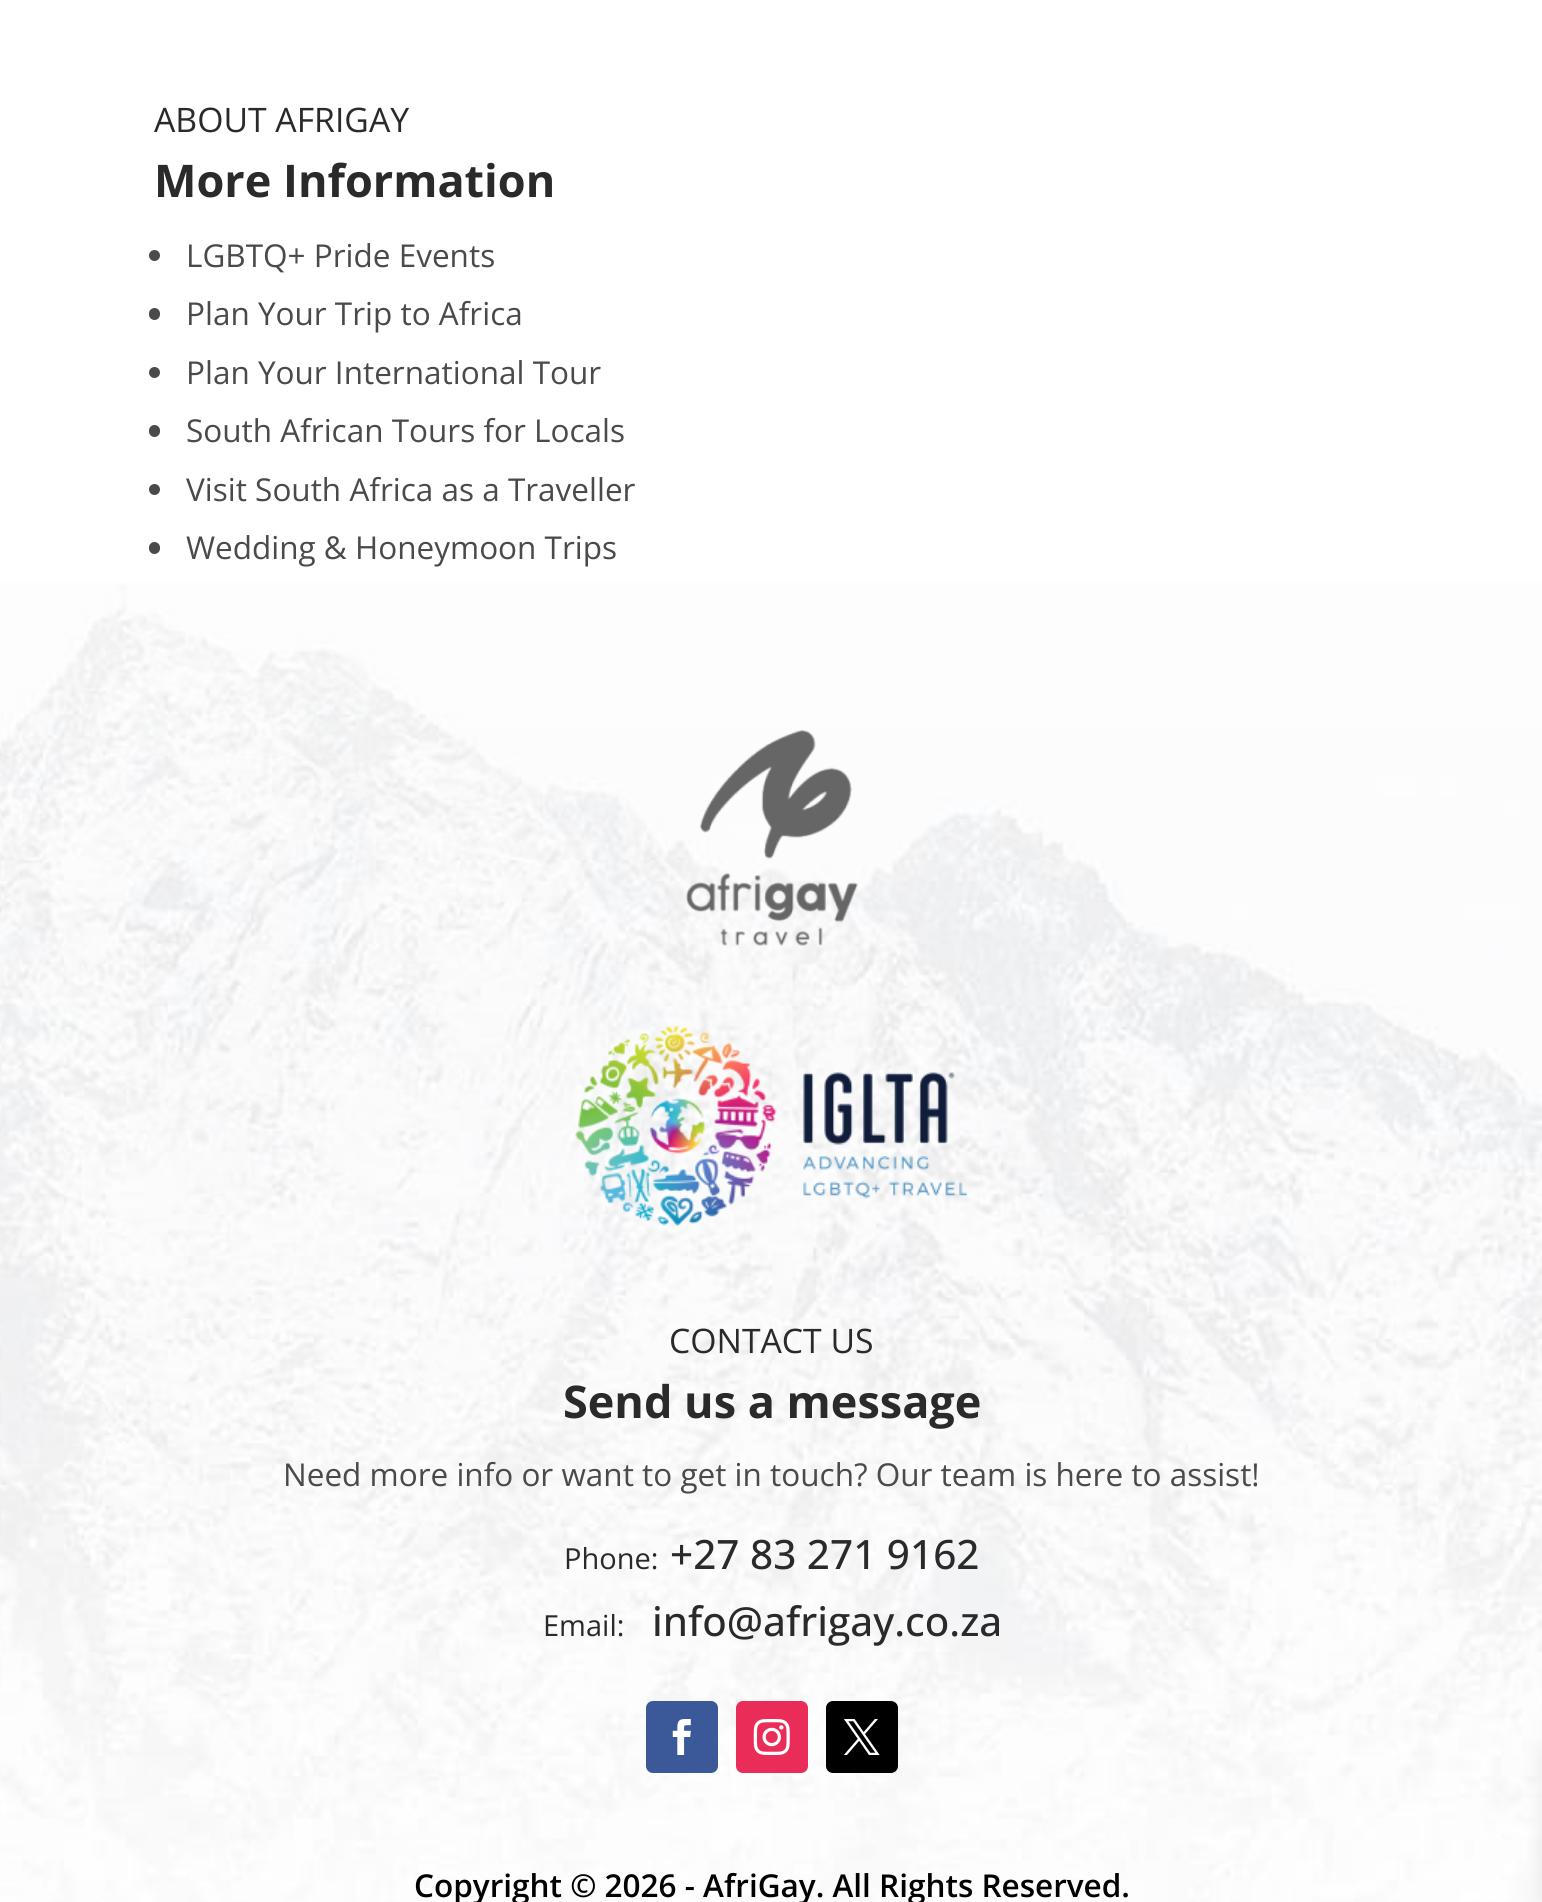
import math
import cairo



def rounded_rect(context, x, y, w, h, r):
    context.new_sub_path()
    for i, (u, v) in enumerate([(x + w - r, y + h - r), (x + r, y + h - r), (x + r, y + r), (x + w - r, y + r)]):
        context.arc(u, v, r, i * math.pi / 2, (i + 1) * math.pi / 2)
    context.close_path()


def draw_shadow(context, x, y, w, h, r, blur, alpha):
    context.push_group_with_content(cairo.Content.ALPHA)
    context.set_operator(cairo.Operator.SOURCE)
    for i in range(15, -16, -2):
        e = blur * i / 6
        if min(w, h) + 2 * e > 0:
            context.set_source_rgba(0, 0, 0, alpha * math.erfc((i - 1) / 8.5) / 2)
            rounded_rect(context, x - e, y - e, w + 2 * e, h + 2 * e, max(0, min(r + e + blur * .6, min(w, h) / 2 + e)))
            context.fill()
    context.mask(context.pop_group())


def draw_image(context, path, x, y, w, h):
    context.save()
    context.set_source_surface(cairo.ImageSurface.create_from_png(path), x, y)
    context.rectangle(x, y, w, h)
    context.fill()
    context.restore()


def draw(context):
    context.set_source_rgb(1, 1, 1)
    context.paint()
    draw_image(context, "images/1.png", 0, 583, 1542, 1319)
    context.set_source_rgb(74 / 255, 74 / 255, 74 / 255)
    context.arc(154.5, 255.5, 5.5, 0, 2 * math.pi)
    context.fill()
    rounded_rect(context, 149, 308, 11, 12, 5.5)
    context.fill()
    context.arc(154.5, 372.5, 5.5, 0, 2 * math.pi)
    context.fill()
    rounded_rect(context, 149, 425, 11, 12, 5.5)
    context.fill()
    context.arc(154.5, 489.5, 5.5, 0, 2 * math.pi)
    context.fill()
    rounded_rect(context, 149, 542, 11, 12, 5.5)
    context.fill()
    draw_image(context, "images/2.png", 685, 729, 173, 217)
    draw_image(context, "images/3.png", 575, 1025, 392, 201)
    context.set_source_rgb(59 / 255, 89 / 255, 152 / 255)
    rounded_rect(context, 646, 1701, 72, 72, 7)
    context.fill()
    draw_image(context, "images/4.png", 672, 1719, 19, 36)
    context.set_source_rgb(234 / 255, 44 / 255, 89 / 255)
    rounded_rect(context, 736, 1701, 72, 72, 7)
    context.fill()
    draw_image(context, "images/5.png", 753, 1719, 37, 36)
    context.set_source_rgb(0, 0, 0)
    rounded_rect(context, 826, 1701, 72, 72, 7)
    context.fill()
    draw_image(context, "images/6.png", 844, 1719, 36, 36)
    context.set_source_rgb(0, 0, 0)
    draw_shadow(context, 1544, 1748, 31, 153, 0, 11, 0.1)
    context.select_font_face("Open Sans")
    context.set_font_size(33.75)
    context.set_source_rgb(42 / 255, 42 / 255, 42 / 255)
    context.move_to(154, 132)
    context.show_text("ABOUT AFRIGAY")
    context.select_font_face("Open Sans", cairo.FontSlant.NORMAL, cairo.FontWeight.BOLD)
    context.set_font_size(45)
    context.move_to(154, 197)
    context.show_text("More Information")
    context.select_font_face("Open Sans")
    context.set_font_size(31.5)
    context.set_source_rgb(74 / 255, 74 / 255, 74 / 255)
    context.move_to(186, 267)
    context.show_text("LGBTQ+ Pride Events")
    context.move_to(186, 325)
    context.show_text("Plan Your Trip to Africa")
    context.move_to(186, 384)
    context.show_text("Plan Your International Tour")
    context.move_to(186, 442)
    context.show_text("South African Tours for Locals")
    context.move_to(186, 501)
    context.show_text("Visit South Africa as a Traveller")
    context.move_to(186, 559)
    context.show_text("Wedding & Honeymoon Trips")
    context.set_font_size(33.75)
    context.set_source_rgb(42 / 255, 42 / 255, 42 / 255)
    context.move_to(669, 1353)
    context.show_text("CONTACT US")
    context.select_font_face("Open Sans", cairo.FontSlant.NORMAL, cairo.FontWeight.BOLD)
    context.set_font_size(45)
    context.move_to(563, 1418)
    context.show_text("Send us a message")
    context.select_font_face("Open Sans")
    context.set_font_size(31.5)
    context.set_source_rgb(74 / 255, 74 / 255, 74 / 255)
    context.move_to(283, 1486)
    context.show_text("Need more info or want to get in touch? Our team is here to assist!")
    context.set_font_size(29)
    context.set_source_rgb(42 / 255, 42 / 255, 42 / 255)
    context.move_to(564, 1569)
    context.show_text("Phone:")
    context.select_font_face("Open Sans Medium")
    context.set_font_size(40.5)
    context.move_to(670, 1569)
    context.show_text("+27 83 271 9162")
    context.select_font_face("Open Sans")
    context.set_font_size(29)
    context.move_to(543, 1636)
    context.show_text("Email:")
    context.select_font_face("Open Sans Medium")
    context.set_font_size(40.5)
    context.move_to(652, 1636)
    context.show_text("info@afrigay.co.za")
    context.select_font_face("Open Sans SemiBold")
    context.set_font_size(31.5)
    context.set_source_rgb(0, 0, 0)
    context.move_to(414, 1897)
    context.show_text("Copyright © 2026 - AfriGay. All Rights Reserved.")


surface = cairo.ImageSurface(cairo.Format.RGB24, 1542, 1902)
context = cairo.Context(surface)
options = cairo.FontOptions()
options.set_hint_metrics(cairo.HintMetrics.OFF)
options.set_hint_style(cairo.HintStyle.NONE)
context.set_font_options(options)
context.set_miter_limit(4)
draw(context)
surface.write_to_png("out.png")
